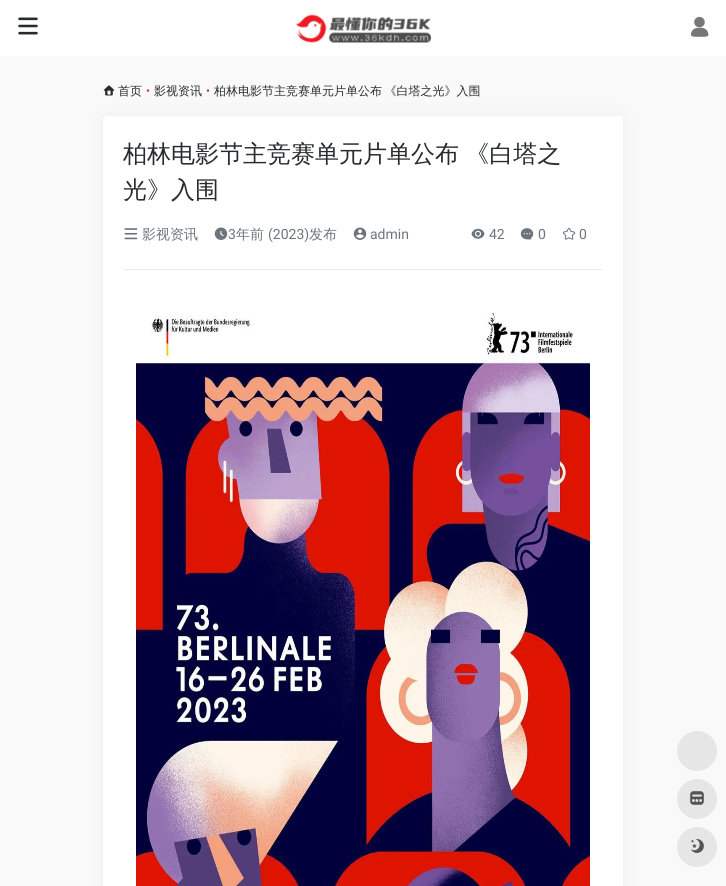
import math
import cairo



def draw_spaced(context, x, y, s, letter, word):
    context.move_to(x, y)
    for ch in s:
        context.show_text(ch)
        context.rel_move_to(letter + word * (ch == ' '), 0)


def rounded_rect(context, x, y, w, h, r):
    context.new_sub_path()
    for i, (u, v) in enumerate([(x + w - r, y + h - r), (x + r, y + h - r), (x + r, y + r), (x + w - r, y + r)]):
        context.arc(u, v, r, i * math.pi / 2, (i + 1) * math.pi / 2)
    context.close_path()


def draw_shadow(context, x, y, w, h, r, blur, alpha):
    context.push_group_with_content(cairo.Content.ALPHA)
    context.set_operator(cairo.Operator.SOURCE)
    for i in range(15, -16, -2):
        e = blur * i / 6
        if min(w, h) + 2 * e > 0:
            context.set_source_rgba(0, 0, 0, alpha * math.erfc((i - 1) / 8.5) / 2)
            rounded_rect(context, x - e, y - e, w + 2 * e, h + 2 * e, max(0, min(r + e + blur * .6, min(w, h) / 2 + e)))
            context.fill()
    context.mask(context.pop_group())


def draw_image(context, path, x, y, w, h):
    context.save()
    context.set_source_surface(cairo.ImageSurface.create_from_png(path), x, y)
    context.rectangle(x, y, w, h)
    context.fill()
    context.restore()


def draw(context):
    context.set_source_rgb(249 / 255, 249 / 255, 249 / 255)
    context.paint()
    context.set_source_rgb(1, 1, 1)
    context.rectangle(0, 0, 726, 56)
    context.fill()
    draw_image(context, "images/1.png", 18, 17, 20, 18)
    draw_image(context, "images/2.png", 296, 14, 135, 29)
    draw_image(context, "images/3.png", 691, 16, 18, 21)
    draw_image(context, "images/4.png", 103, 85, 12, 11)
    context.set_source_rgb(158 / 255, 158 / 255, 158 / 255)
    draw_shadow(context, 108, 121, 510, 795, 0, 10, 0.2)
    context.set_source_rgb(1, 1, 1)
    rounded_rect(context, 103, 116, 520, 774, 4)
    context.fill()
    context.set_source_rgb(236 / 255, 236 / 255, 236 / 255)
    context.rectangle(123, 269, 480, 1)
    context.fill()
    draw_image(context, "images/5.png", 124, 228, 14, 12)
    draw_image(context, "images/6.png", 214, 227, 14, 13)
    draw_image(context, "images/7.png", 353, 227, 14, 13)
    draw_image(context, "images/8.png", 471, 228, 14, 11)
    draw_image(context, "images/9.png", 520, 228, 14, 12)
    draw_image(context, "images/10.png", 562, 227, 14, 13)
    draw_image(context, "images/11.png", 136, 312, 454, 574)
    context.set_source_rgb(230 / 255, 230 / 255, 230 / 255)
    context.arc(697, 751, 20, 0, 2 * math.pi)
    context.fill()
    context.arc(697, 799, 20, 0, 2 * math.pi)
    context.fill()
    draw_image(context, "images/12.png", 690, 791, 14, 14)
    context.arc(697, 847, 20, 0, 2 * math.pi)
    context.fill()
    draw_image(context, "images/13.png", 691, 839, 13, 14)
    context.select_font_face("WenQuanYi Zen Hei Medium")
    context.set_font_size(12)
    context.set_source_rgb(40 / 255, 42 / 255, 45 / 255)
    context.move_to(118, 95)
    context.show_text("首页")
    context.select_font_face("Roboto")
    context.set_source_rgb(220 / 255, 53 / 255, 69 / 255)
    context.move_to(146, 95)
    context.show_text("•")
    context.select_font_face("WenQuanYi Zen Hei Medium")
    context.set_source_rgb(40 / 255, 42 / 255, 45 / 255)
    context.move_to(154, 95)
    context.show_text("影视资讯")
    context.select_font_face("Roboto")
    context.set_source_rgb(220 / 255, 53 / 255, 69 / 255)
    context.move_to(206, 95)
    context.show_text("•")
    context.select_font_face("WenQuanYi Zen Hei Medium")
    context.set_source_rgb(40 / 255, 42 / 255, 45 / 255)
    draw_spaced(context, 214, 95, "柏林电影节主竞赛单元片单公布 《白塔之光》入围", 0, -1)
    context.set_font_size(24)
    draw_spaced(context, 123, 162, "柏林电影节主竞赛单元片单公布 《白塔之", 0, -1)
    context.move_to(123, 198)
    context.show_text("光》入围")
    context.set_font_size(14)
    context.set_source_rgb(108 / 255, 117 / 255, 125 / 255)
    context.move_to(142, 239)
    context.show_text("影视资讯")
    context.select_font_face("Roboto")
    context.move_to(228, 239)
    context.show_text("3")
    context.select_font_face("WenQuanYi Zen Hei Medium")
    context.move_to(236, 239)
    context.show_text("年前")
    context.select_font_face("Roboto")
    context.move_to(268, 239)
    context.show_text("(2023)")
    context.select_font_face("WenQuanYi Zen Hei Medium")
    context.move_to(309, 239)
    context.show_text("发布")
    context.select_font_face("Roboto")
    context.move_to(370, 239)
    context.show_text("admin")
    context.move_to(489, 239)
    context.show_text("42")
    context.move_to(538, 239)
    context.show_text("0")
    context.move_to(579, 239)
    context.show_text("0")


surface = cairo.ImageSurface(cairo.Format.RGB24, 726, 886)
context = cairo.Context(surface)
options = cairo.FontOptions()
options.set_hint_metrics(cairo.HintMetrics.OFF)
options.set_hint_style(cairo.HintStyle.NONE)
context.set_font_options(options)
context.set_miter_limit(4)
draw(context)
surface.write_to_png("out.png")
